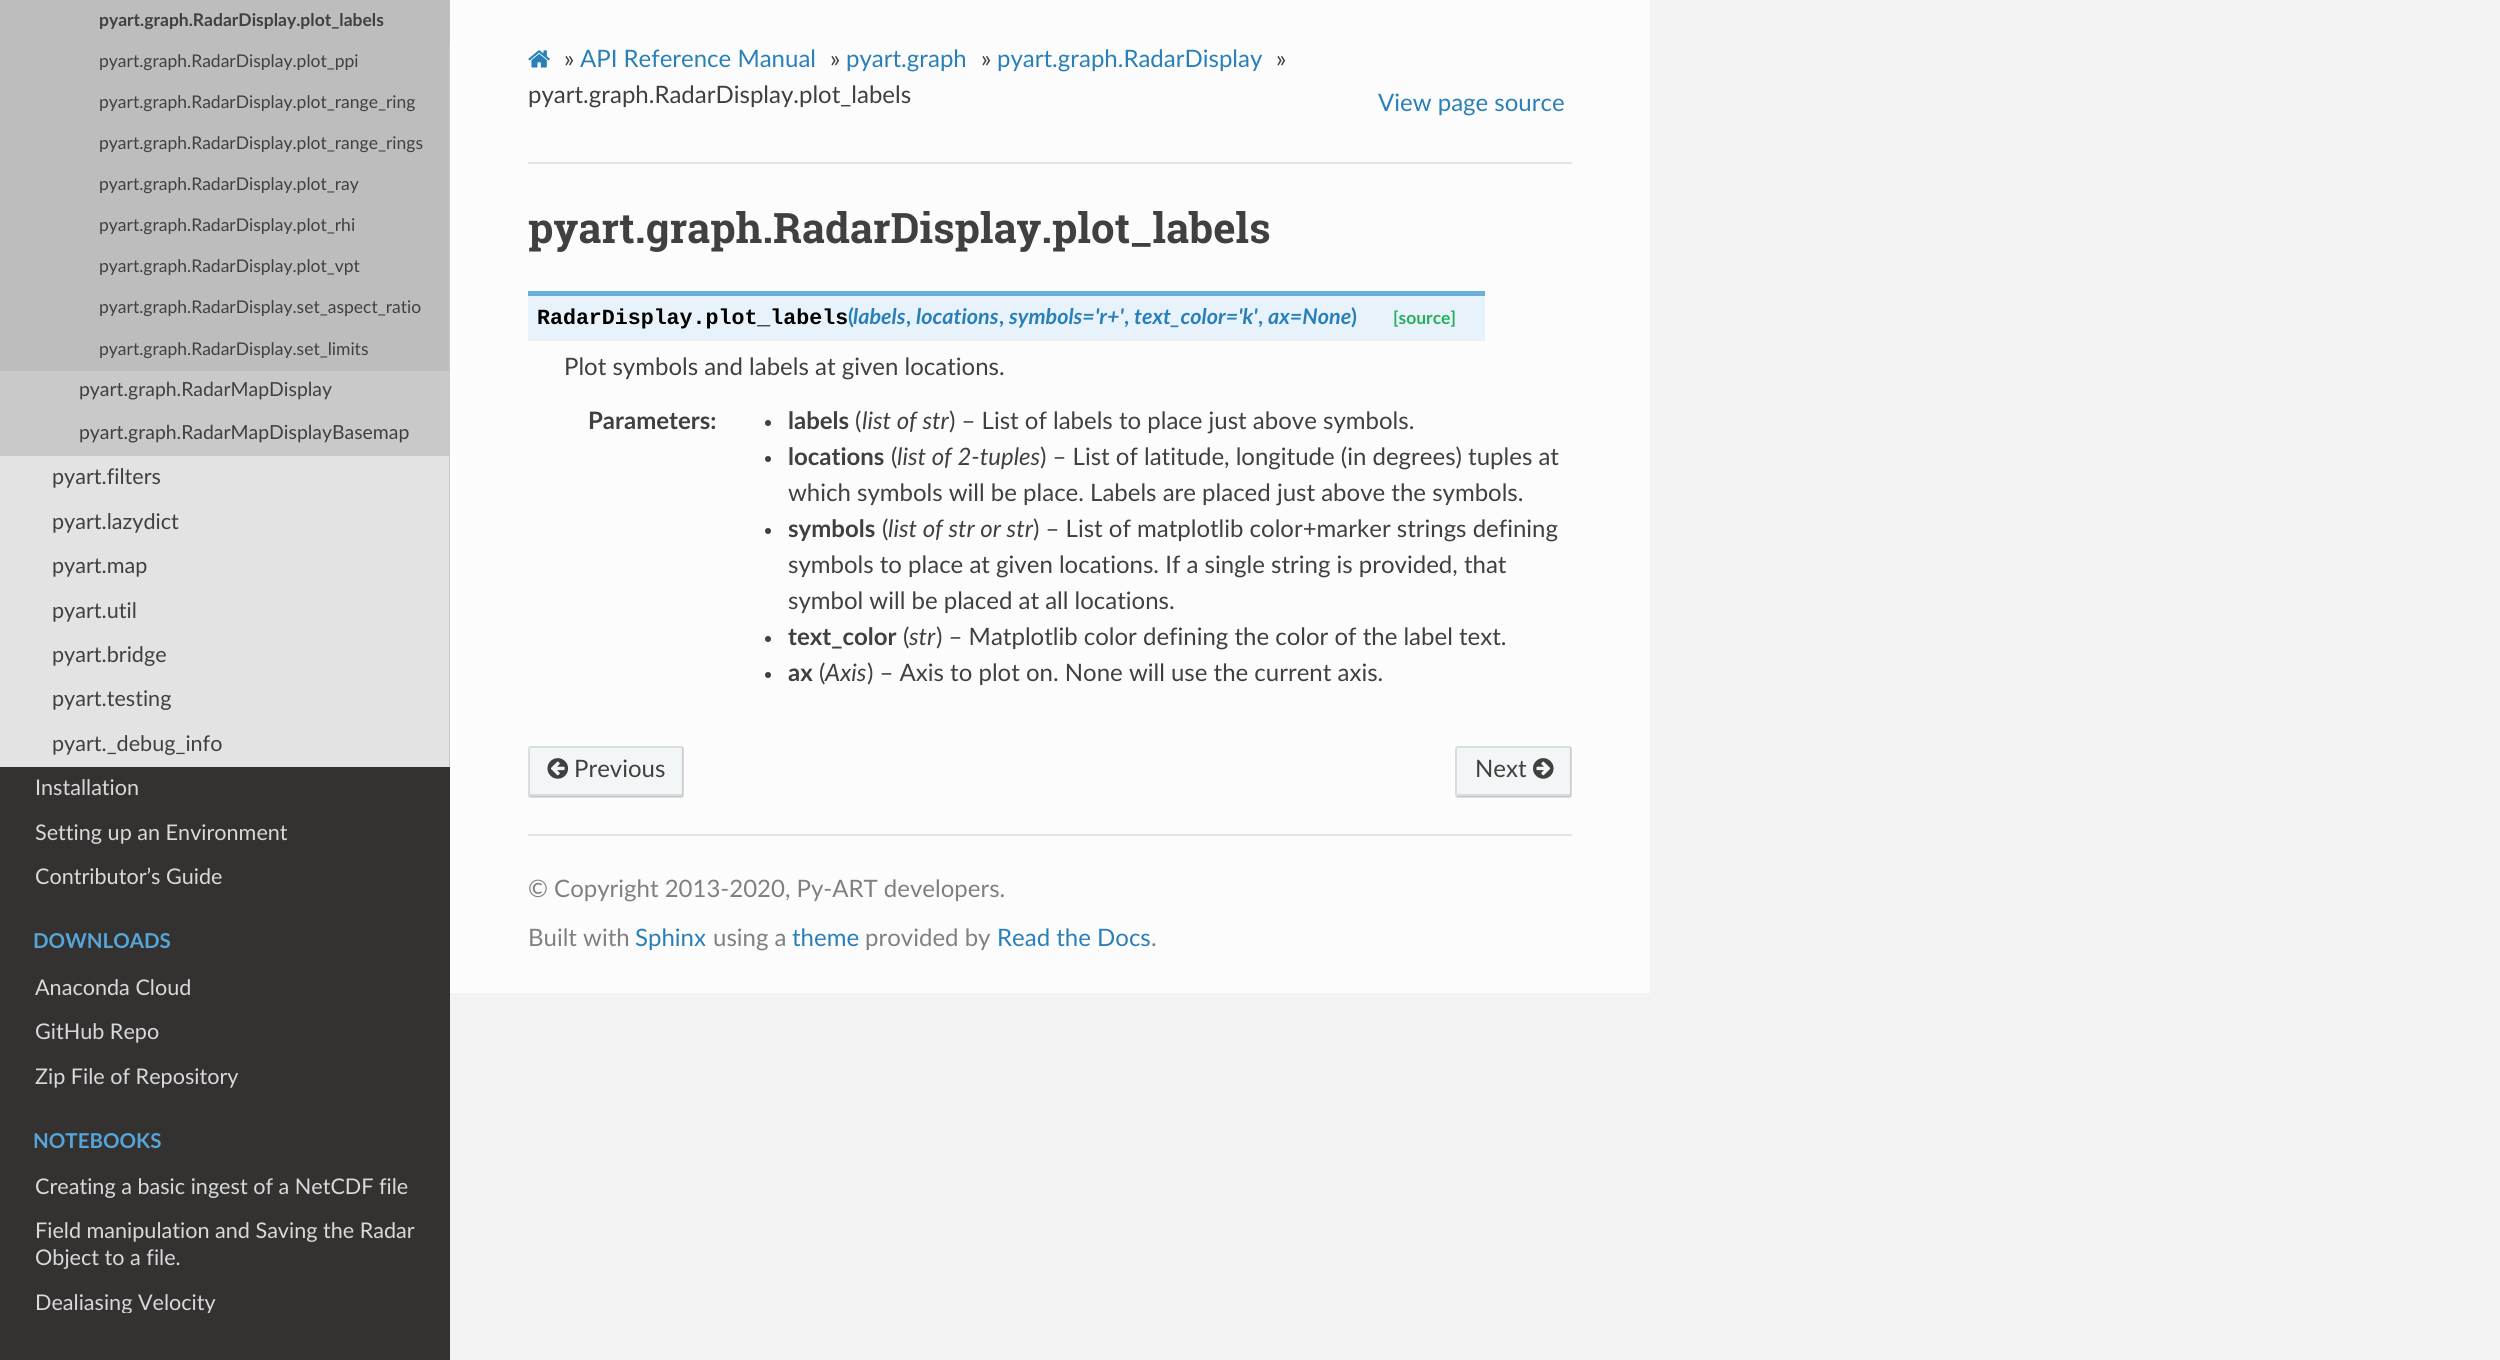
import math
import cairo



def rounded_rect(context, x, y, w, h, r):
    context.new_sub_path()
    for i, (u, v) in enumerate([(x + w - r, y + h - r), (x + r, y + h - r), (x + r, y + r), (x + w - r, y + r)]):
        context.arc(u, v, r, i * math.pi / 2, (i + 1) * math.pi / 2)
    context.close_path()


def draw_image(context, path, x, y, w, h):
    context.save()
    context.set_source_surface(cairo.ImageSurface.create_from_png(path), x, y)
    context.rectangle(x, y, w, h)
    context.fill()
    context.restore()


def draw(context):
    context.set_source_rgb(243 / 255, 243 / 255, 243 / 255)
    context.paint()
    context.set_source_rgb(52 / 255, 49 / 255, 49 / 255)
    context.rectangle(0, 767, 450, 593)
    context.fill()
    context.set_source_rgb(227 / 255, 227 / 255, 227 / 255)
    context.rectangle(0, 456, 449, 311)
    context.fill()
    context.set_source_rgb(189 / 255, 189 / 255, 189 / 255)
    context.rectangle(0, 0, 450, 42)
    context.fill()
    context.rectangle(0, 42, 449, 329)
    context.fill()
    context.set_source_rgb(201 / 255, 201 / 255, 201 / 255)
    context.rectangle(449, 42, 1, 329)
    context.fill()
    context.rectangle(0, 371, 450, 85)
    context.fill()
    context.rectangle(449, 456, 1, 311)
    context.fill()
    context.set_source_rgb(252 / 255, 252 / 255, 252 / 255)
    context.rectangle(450, 0, 1200, 993)
    context.fill()
    draw_image(context, "images/1.png", 528, 50, 22, 18)
    context.set_source_rgb(225 / 255, 228 / 255, 229 / 255)
    context.rectangle(528, 162, 1044, 2)
    context.fill()
    context.set_source_rgb(231 / 255, 242 / 255, 250 / 255)
    context.rectangle(528, 296, 957, 45)
    context.fill()
    context.set_source_rgb(106 / 255, 176 / 255, 222 / 255)
    context.rectangle(528, 291, 957, 5)
    context.fill()
    context.set_source_rgb(64 / 255, 64 / 255, 64 / 255)
    context.arc(768, 423, 3, 0, 2 * math.pi)
    context.fill()
    context.arc(768, 459, 3, 0, 2 * math.pi)
    context.fill()
    context.arc(768, 531, 3, 0, 2 * math.pi)
    context.fill()
    context.arc(768, 639, 3, 0, 2 * math.pi)
    context.fill()
    context.arc(768, 675, 3, 0, 2 * math.pi)
    context.fill()
    context.set_source_rgb(243 / 255, 246 / 255, 246 / 255)
    rounded_rect(context, 528, 746, 156, 52, 3)
    context.fill()
    context.set_source_rgb(219 / 255, 221 / 255, 221 / 255)
    context.new_path()
    context.move_to(530, 792)
    context.line_to(530, 796)
    context.curve_to(530, 796, 531, 797, 532, 797)
    context.line_to(682, 797)
    context.curve_to(682, 797, 683, 796, 683, 796)
    context.line_to(683, 748)
    context.curve_to(683, 748, 683, 747, 682, 747)
    context.line_to(682, 792)
    context.curve_to(682, 793, 682, 794, 681, 794)
    context.line_to(531, 794)
    context.curve_to(530, 794, 530, 793, 530, 792)
    context.close_path()
    context.fill()
    rounded_rect(context, 529, 747, 154, 50, 2)
    context.set_source_rgba(0, 0, 0, 0.1)
    context.stroke()
    draw_image(context, "images/2.png", 547, 758, 22, 21)
    context.set_source_rgb(243 / 255, 246 / 255, 246 / 255)
    rounded_rect(context, 1455, 746, 117, 52, 3)
    context.fill()
    context.set_source_rgb(219 / 255, 221 / 255, 221 / 255)
    context.new_path()
    context.move_to(1457, 794)
    context.line_to(1457, 796)
    context.curve_to(1457, 796, 1458, 797, 1458, 797)
    context.line_to(1570, 797)
    context.curve_to(1570, 797, 1571, 796, 1571, 796)
    context.line_to(1571, 748)
    context.curve_to(1571, 748, 1571, 747, 1570, 747)
    context.line_to(1570, 785)
    context.curve_to(1570, 789, 1571, 794, 1569, 794)
    context.close_path()
    context.fill()
    rounded_rect(context, 1456, 747, 115, 50, 2)
    context.set_source_rgba(0, 0, 0, 0.1)
    context.stroke()
    draw_image(context, "images/3.png", 1533, 758, 21, 21)
    context.set_source_rgb(225 / 255, 228 / 255, 229 / 255)
    context.rectangle(528, 834, 1044, 2)
    context.fill()
    context.select_font_face("Lato", cairo.FontSlant.NORMAL, cairo.FontWeight.BOLD)
    context.set_font_size(17.5)
    context.set_source_rgb(64 / 255, 64 / 255, 64 / 255)
    context.move_to(99, 26)
    context.show_text("pyart.graph.RadarDisplay.plot_labels")
    context.select_font_face("Lato")
    context.move_to(99, 67)
    context.show_text("pyart.graph.RadarDisplay.plot_ppi")
    context.move_to(99, 108)
    context.show_text("pyart.graph.RadarDisplay.plot_range_ring")
    context.move_to(99, 149)
    context.show_text("pyart.graph.RadarDisplay.plot_range_rings")
    context.move_to(99, 190)
    context.show_text("pyart.graph.RadarDisplay.plot_ray")
    context.move_to(99, 231)
    context.show_text("pyart.graph.RadarDisplay.plot_rhi")
    context.move_to(99, 272)
    context.show_text("pyart.graph.RadarDisplay.plot_vpt")
    context.move_to(99, 313)
    context.show_text("pyart.graph.RadarDisplay.set_aspect_ratio")
    context.move_to(99, 355)
    context.show_text("pyart.graph.RadarDisplay.set_limits")
    context.set_font_size(19.4)
    context.move_to(79, 396)
    context.show_text("pyart.graph.RadarMapDisplay")
    context.move_to(79, 439)
    context.show_text("pyart.graph.RadarMapDisplayBasemap")
    context.set_font_size(21.6)
    context.move_to(52, 484)
    context.show_text("pyart.filters")
    context.move_to(52, 529)
    context.show_text("pyart.lazydict")
    context.move_to(52, 573)
    context.show_text("pyart.map")
    context.move_to(52, 618)
    context.show_text("pyart.util")
    context.move_to(52, 662)
    context.show_text("pyart.bridge")
    context.move_to(52, 706)
    context.show_text("pyart.testing")
    context.move_to(52, 751)
    context.show_text("pyart._debug_info")
    context.set_source_rgb(217 / 255, 217 / 255, 217 / 255)
    context.move_to(35, 795)
    context.show_text("Installation")
    context.move_to(35, 840)
    context.show_text("Setting up an Environment")
    context.move_to(35, 884)
    context.show_text("Contributor’s Guide")
    context.select_font_face("Lato", cairo.FontSlant.NORMAL, cairo.FontWeight.BOLD)
    context.set_font_size(20.5)
    context.set_source_rgb(85 / 255, 165 / 255, 217 / 255)
    context.move_to(33, 948)
    context.show_text("DOWNLOADS")
    context.select_font_face("Lato")
    context.set_font_size(21.6)
    context.set_source_rgb(217 / 255, 217 / 255, 217 / 255)
    context.move_to(35, 995)
    context.show_text("Anaconda Cloud")
    context.move_to(35, 1039)
    context.show_text("GitHub Repo")
    context.move_to(35, 1084)
    context.show_text("Zip File of Repository")
    context.select_font_face("Lato", cairo.FontSlant.NORMAL, cairo.FontWeight.BOLD)
    context.set_font_size(20.5)
    context.set_source_rgb(85 / 255, 165 / 255, 217 / 255)
    context.move_to(33, 1148)
    context.show_text("NOTEBOOKS")
    context.select_font_face("Lato")
    context.set_font_size(21.6)
    context.set_source_rgb(217 / 255, 217 / 255, 217 / 255)
    context.move_to(35, 1194)
    context.show_text("Creating a basic ingest of a NetCDF file")
    context.move_to(35, 1238)
    context.show_text("Field manipulation and Saving the Radar")
    context.move_to(35, 1265)
    context.show_text("Object to a file.")
    context.save()
    context.rectangle(0, 0, 450, 1313)
    context.clip()
    context.move_to(35, 1310)
    context.show_text("Dealiasing Velocity")
    context.restore()
    context.set_font_size(24)
    context.set_source_rgb(64 / 255, 64 / 255, 64 / 255)
    context.move_to(564, 67)
    context.show_text("»")
    context.set_source_rgb(41 / 255, 128 / 255, 185 / 255)
    context.move_to(580, 67)
    context.show_text("API Reference Manual")
    context.set_source_rgb(64 / 255, 64 / 255, 64 / 255)
    context.move_to(830, 67)
    context.show_text("»")
    context.set_source_rgb(41 / 255, 128 / 255, 185 / 255)
    context.move_to(846, 67)
    context.show_text("pyart.graph")
    context.set_source_rgb(64 / 255, 64 / 255, 64 / 255)
    context.move_to(981, 67)
    context.show_text("»")
    context.set_source_rgb(41 / 255, 128 / 255, 185 / 255)
    context.move_to(997, 67)
    context.show_text("pyart.graph.RadarDisplay")
    context.set_source_rgb(64 / 255, 64 / 255, 64 / 255)
    context.move_to(1276, 67)
    context.show_text("»")
    context.move_to(528, 103)
    context.show_text("pyart.graph.RadarDisplay.plot_labels")
    context.set_source_rgb(41 / 255, 128 / 255, 185 / 255)
    context.move_to(1378, 111)
    context.show_text("View page source")
    context.select_font_face("Roboto Slab", cairo.FontSlant.NORMAL, cairo.FontWeight.BOLD)
    context.set_font_size(42)
    context.set_source_rgb(64 / 255, 64 / 255, 64 / 255)
    context.move_to(528, 243)
    context.show_text("pyart.graph.RadarDisplay.plot_labels")
    context.select_font_face("Liberation Mono", cairo.FontSlant.NORMAL, cairo.FontWeight.BOLD)
    context.set_font_size(21.6)
    context.set_source_rgb(0, 0, 0)
    context.move_to(537, 324)
    context.show_text("RadarDisplay.plot_labels")
    context.select_font_face("Lato", cairo.FontSlant.NORMAL, cairo.FontWeight.BOLD)
    context.set_source_rgb(41 / 255, 128 / 255, 185 / 255)
    context.move_to(848, 324)
    context.show_text("(")
    context.select_font_face("Lato", cairo.FontSlant.ITALIC, cairo.FontWeight.BOLD)
    context.move_to(853, 324)
    context.show_text("labels")
    context.select_font_face("Lato", cairo.FontSlant.NORMAL, cairo.FontWeight.BOLD)
    context.move_to(906, 324)
    context.show_text(",")
    context.select_font_face("Lato", cairo.FontSlant.ITALIC, cairo.FontWeight.BOLD)
    context.move_to(916, 324)
    context.show_text("locations")
    context.select_font_face("Lato", cairo.FontSlant.NORMAL, cairo.FontWeight.BOLD)
    context.move_to(999, 324)
    context.show_text(",")
    context.select_font_face("Lato", cairo.FontSlant.ITALIC, cairo.FontWeight.BOLD)
    context.move_to(1009, 324)
    context.show_text("symbols='r+'")
    context.select_font_face("Lato", cairo.FontSlant.NORMAL, cairo.FontWeight.BOLD)
    context.move_to(1124, 324)
    context.show_text(",")
    context.select_font_face("Lato", cairo.FontSlant.ITALIC, cairo.FontWeight.BOLD)
    context.move_to(1134, 324)
    context.show_text("text_color='k'")
    context.select_font_face("Lato", cairo.FontSlant.NORMAL, cairo.FontWeight.BOLD)
    context.move_to(1258, 324)
    context.show_text(",")
    context.select_font_face("Lato", cairo.FontSlant.ITALIC, cairo.FontWeight.BOLD)
    context.move_to(1268, 324)
    context.show_text("ax=None")
    context.select_font_face("Lato", cairo.FontSlant.NORMAL, cairo.FontWeight.BOLD)
    context.move_to(1351, 324)
    context.show_text(")")
    context.set_font_size(17.5)
    context.set_source_rgb(39 / 255, 174 / 255, 96 / 255)
    context.move_to(1393, 324)
    context.show_text("[source]")
    context.select_font_face("Lato")
    context.set_font_size(24)
    context.set_source_rgb(64 / 255, 64 / 255, 64 / 255)
    context.move_to(564, 375)
    context.show_text("Plot symbols and labels at given locations.")
    context.select_font_face("Lato", cairo.FontSlant.NORMAL, cairo.FontWeight.BOLD)
    context.move_to(588, 429)
    context.show_text("Parameters:")
    context.move_to(788, 429)
    context.show_text("labels")
    context.select_font_face("Lato")
    context.move_to(855, 429)
    context.show_text("(")
    context.select_font_face("Lato", cairo.FontSlant.ITALIC)
    context.move_to(862, 429)
    context.show_text("list of str")
    context.select_font_face("Lato")
    context.move_to(949, 429)
    context.show_text(") – List of labels to place just above symbols.")
    context.select_font_face("Lato", cairo.FontSlant.NORMAL, cairo.FontWeight.BOLD)
    context.move_to(788, 465)
    context.show_text("locations")
    context.select_font_face("Lato")
    context.move_to(891, 465)
    context.show_text("(")
    context.select_font_face("Lato", cairo.FontSlant.ITALIC)
    context.move_to(897, 465)
    context.show_text("list of 2-tuples")
    context.select_font_face("Lato")
    context.move_to(1040, 465)
    context.show_text(") – List of latitude, longitude (in degrees) tuples at")
    context.move_to(788, 501)
    context.show_text("which symbols will be place. Labels are placed just above the symbols.")
    context.select_font_face("Lato", cairo.FontSlant.NORMAL, cairo.FontWeight.BOLD)
    context.move_to(788, 537)
    context.show_text("symbols")
    context.select_font_face("Lato")
    context.move_to(882, 537)
    context.show_text("(")
    context.select_font_face("Lato", cairo.FontSlant.ITALIC)
    context.move_to(888, 537)
    context.show_text("list of str or str")
    context.select_font_face("Lato")
    context.move_to(1033, 537)
    context.show_text(") – List of matplotlib color+marker strings defining")
    context.move_to(788, 573)
    context.show_text("symbols to place at given locations. If a single string is provided, that")
    context.move_to(788, 609)
    context.show_text("symbol will be placed at all locations.")
    context.select_font_face("Lato", cairo.FontSlant.NORMAL, cairo.FontWeight.BOLD)
    context.move_to(788, 645)
    context.show_text("text_color")
    context.select_font_face("Lato")
    context.move_to(903, 645)
    context.show_text("(")
    context.select_font_face("Lato", cairo.FontSlant.ITALIC)
    context.move_to(909, 645)
    context.show_text("str")
    context.select_font_face("Lato")
    context.move_to(936, 645)
    context.show_text(") – Matplotlib color defining the color of the label text.")
    context.select_font_face("Lato", cairo.FontSlant.NORMAL, cairo.FontWeight.BOLD)
    context.move_to(788, 681)
    context.show_text("ax")
    context.select_font_face("Lato")
    context.move_to(819, 681)
    context.show_text("(")
    context.select_font_face("Lato", cairo.FontSlant.ITALIC)
    context.move_to(825, 681)
    context.show_text("Axis")
    context.select_font_face("Lato")
    context.move_to(867, 681)
    context.show_text(") – Axis to plot on. None will use the current axis.")
    context.move_to(574, 777)
    context.show_text("Previous")
    context.move_to(1475, 777)
    context.show_text("Next")
    context.set_source_rgb(128 / 255, 128 / 255, 128 / 255)
    context.move_to(528, 897)
    context.show_text("© Copyright 2013-2020, Py-ART developers.")
    context.move_to(528, 946)
    context.show_text("Built with")
    context.set_source_rgb(41 / 255, 128 / 255, 185 / 255)
    context.move_to(635, 946)
    context.show_text("Sphinx")
    context.set_source_rgb(128 / 255, 128 / 255, 128 / 255)
    context.move_to(713, 946)
    context.show_text("using a")
    context.set_source_rgb(41 / 255, 128 / 255, 185 / 255)
    context.move_to(792, 946)
    context.show_text("theme")
    context.set_source_rgb(128 / 255, 128 / 255, 128 / 255)
    context.move_to(865, 946)
    context.show_text("provided by")
    context.set_source_rgb(41 / 255, 128 / 255, 185 / 255)
    context.move_to(997, 946)
    context.show_text("Read the Docs")
    context.set_source_rgb(128 / 255, 128 / 255, 128 / 255)
    context.move_to(1151, 946)
    context.show_text(".")


surface = cairo.ImageSurface(cairo.Format.RGB24, 2500, 1360)
context = cairo.Context(surface)
options = cairo.FontOptions()
options.set_hint_metrics(cairo.HintMetrics.OFF)
options.set_hint_style(cairo.HintStyle.NONE)
context.set_font_options(options)
context.set_miter_limit(4)
draw(context)
surface.write_to_png("out.png")
